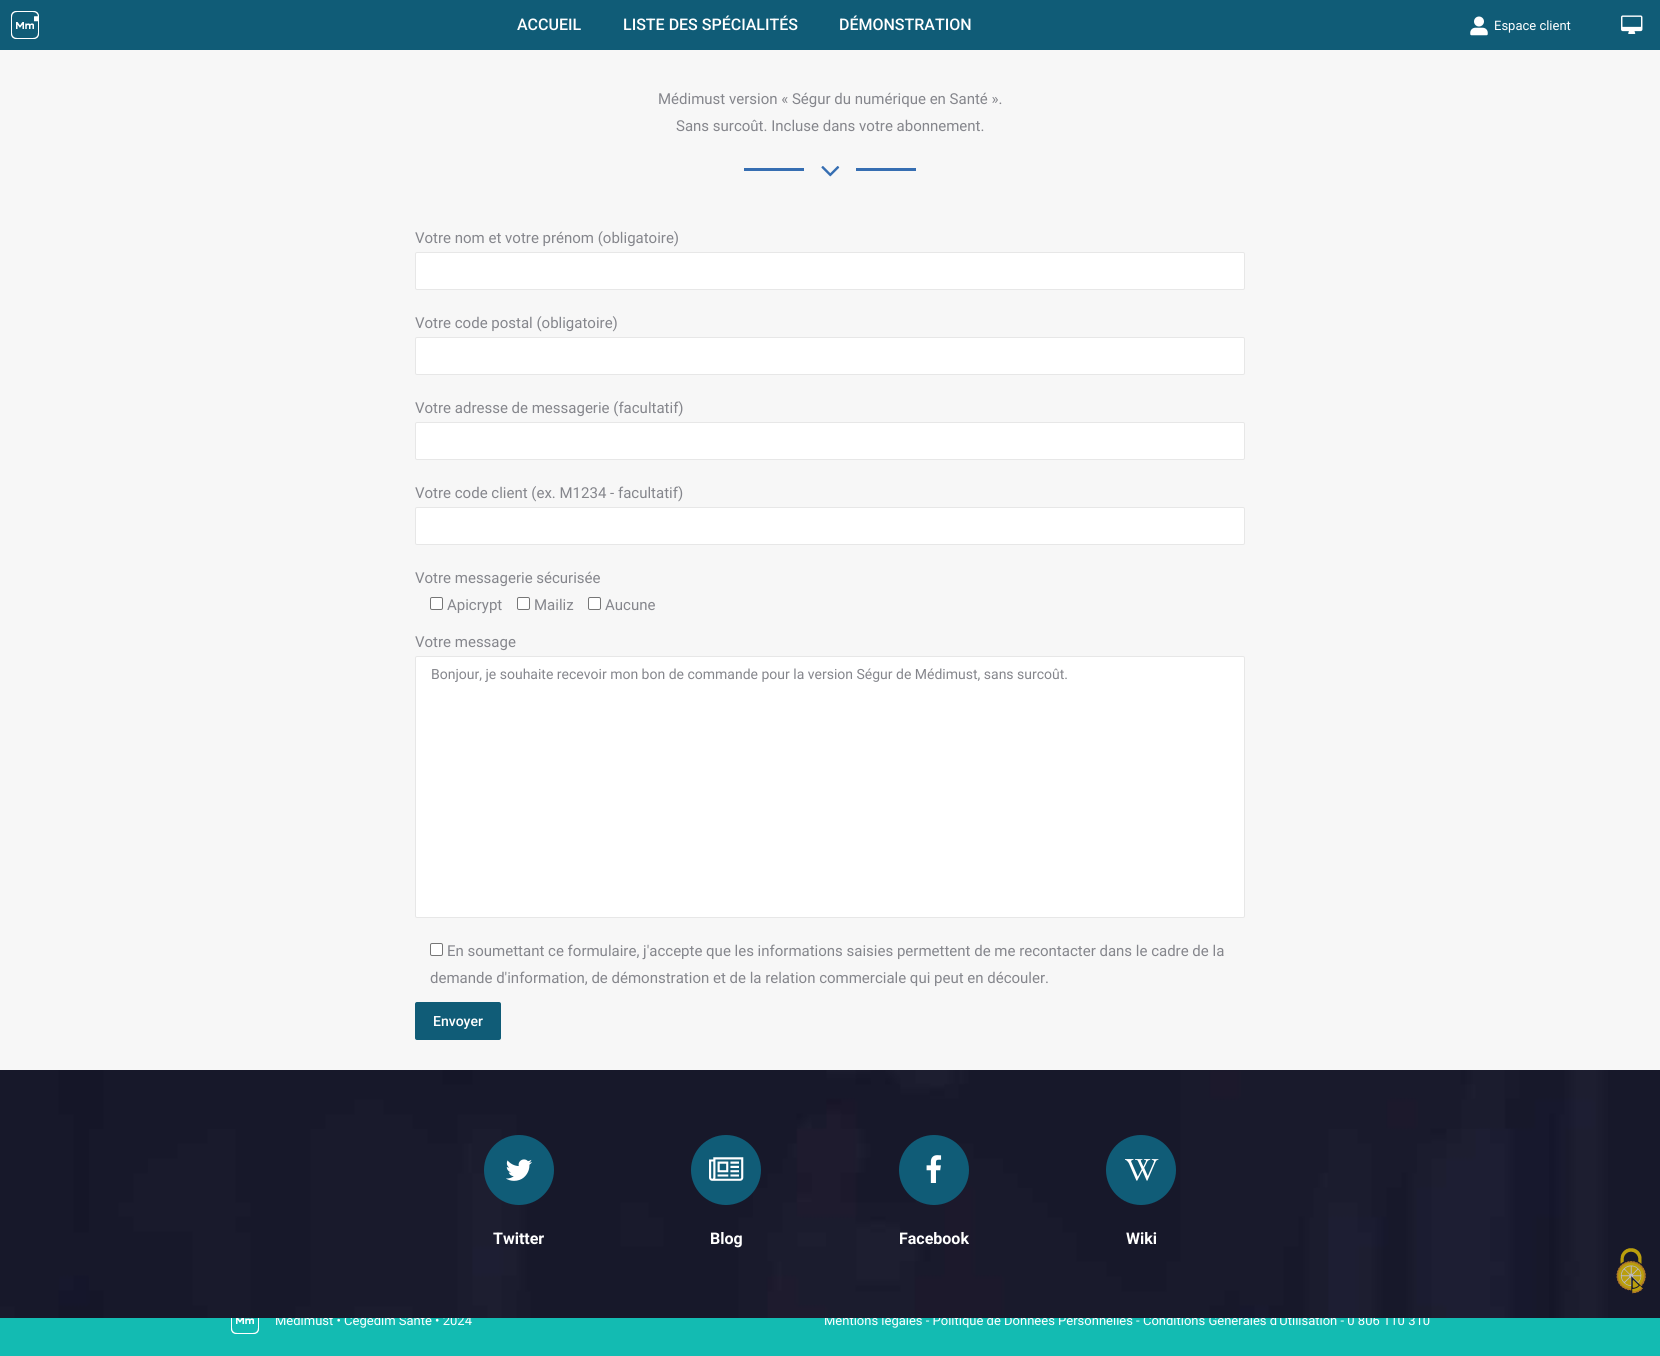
import math
import cairo



def rounded_rect(context, x, y, w, h, r):
    context.new_sub_path()
    for i, (u, v) in enumerate([(x + w - r, y + h - r), (x + r, y + h - r), (x + r, y + r), (x + w - r, y + r)]):
        context.arc(u, v, r, i * math.pi / 2, (i + 1) * math.pi / 2)
    context.close_path()


def draw_image(context, path, x, y, w, h):
    context.save()
    context.set_source_surface(cairo.ImageSurface.create_from_png(path), x, y)
    context.rectangle(x, y, w, h)
    context.fill()
    context.restore()


def draw(context):
    context.set_source_rgb(19 / 255, 187 / 255, 178 / 255)
    context.paint()
    context.set_source_rgb(16 / 255, 92 / 255, 119 / 255)
    context.rectangle(0, 0, 1660, 50)
    context.fill()
    draw_image(context, "images/1.png", 11, 11, 28, 28)
    draw_image(context, "images/2.png", 1470, 16, 18, 20)
    draw_image(context, "images/3.png", 1621, 15, 22, 19)
    context.set_source_rgb(247 / 255, 247 / 255, 247 / 255)
    context.rectangle(0, 50, 1660, 1020)
    context.fill()
    context.set_source_rgb(54 / 255, 110 / 255, 178 / 255)
    context.rectangle(744, 168, 60, 3)
    context.fill()
    draw_image(context, "images/4.png", 821, 166, 19, 11)
    context.rectangle(856, 168, 60, 3)
    context.fill()
    context.set_source_rgb(1, 1, 1)
    rounded_rect(context, 415.5, 252.5, 829, 37, 1.5)
    context.fill_preserve()
    context.set_source_rgb(231 / 255, 231 / 255, 231 / 255)
    context.set_line_width(1)
    context.stroke()
    context.set_source_rgb(1, 1, 1)
    rounded_rect(context, 415.5, 337.5, 829, 37, 1.5)
    context.fill_preserve()
    context.set_source_rgb(231 / 255, 231 / 255, 231 / 255)
    context.stroke()
    context.set_source_rgb(1, 1, 1)
    rounded_rect(context, 415.5, 422.5, 829, 37, 1.5)
    context.fill_preserve()
    context.set_source_rgb(231 / 255, 231 / 255, 231 / 255)
    context.stroke()
    context.set_source_rgb(1, 1, 1)
    rounded_rect(context, 415.5, 507.5, 829, 37, 1.5)
    context.fill_preserve()
    context.set_source_rgb(231 / 255, 231 / 255, 231 / 255)
    context.stroke()
    context.set_source_rgb(1, 1, 1)
    rounded_rect(context, 430.5, 597.5, 12, 12, 1.5)
    context.fill_preserve()
    context.set_source_rgb(118 / 255, 118 / 255, 118 / 255)
    context.stroke()
    context.set_source_rgb(1, 1, 1)
    rounded_rect(context, 517.5, 597.5, 12, 12, 1.5)
    context.fill_preserve()
    context.set_source_rgb(118 / 255, 118 / 255, 118 / 255)
    context.stroke()
    context.set_source_rgb(1, 1, 1)
    rounded_rect(context, 588.5, 597.5, 12, 12, 1.5)
    context.fill_preserve()
    context.set_source_rgb(118 / 255, 118 / 255, 118 / 255)
    context.stroke()
    context.set_source_rgb(1, 1, 1)
    rounded_rect(context, 415.5, 656.5, 829, 261, 1.5)
    context.fill_preserve()
    context.set_source_rgb(231 / 255, 231 / 255, 231 / 255)
    context.stroke()
    context.set_source_rgb(1, 1, 1)
    rounded_rect(context, 430.5, 943.5, 12, 12, 1.5)
    context.fill_preserve()
    context.set_source_rgb(118 / 255, 118 / 255, 118 / 255)
    context.stroke()
    context.set_source_rgb(16 / 255, 92 / 255, 119 / 255)
    rounded_rect(context, 415, 1002, 86, 38, 2)
    context.fill()
    draw_image(context, "images/10.png", 231, 1318, 28, 16)
    context.select_font_face("Roboto Medium")
    context.set_font_size(16)
    context.set_source_rgb(1, 1, 1)
    context.move_to(517, 30)
    context.show_text("ACCUEIL")
    context.move_to(623, 30)
    context.show_text("LISTE DES SPÉCIALITÉS")
    context.move_to(839, 30)
    context.show_text("DÉMONSTRATION")
    context.select_font_face("Roboto")
    context.set_font_size(13)
    context.move_to(1494, 30)
    context.show_text("Espace client")
    context.set_font_size(15)
    context.set_source_rgb(133 / 255, 134 / 255, 140 / 255)
    context.move_to(658, 104)
    context.show_text("Médimust version « Ségur du numérique en Santé ».")
    context.move_to(676, 131)
    context.show_text("Sans surcoût. Incluse dans votre abonnement.")
    context.move_to(415, 243)
    context.show_text("Votre nom et votre prénom (obligatoire)")
    context.move_to(415, 328)
    context.show_text("Votre code postal (obligatoire)")
    context.move_to(415, 413)
    context.show_text("Votre adresse de messagerie (facultatif)")
    context.move_to(415, 498)
    context.show_text("Votre code client (ex. M1234 - facultatif)")
    context.move_to(415, 583)
    context.show_text("Votre messagerie sécurisée")
    context.move_to(447, 610)
    context.show_text("Apicrypt")
    context.move_to(534, 610)
    context.show_text("Mailiz")
    context.move_to(605, 610)
    context.show_text("Aucune")
    context.move_to(415, 647)
    context.show_text("Votre message")
    context.set_font_size(14)
    context.move_to(431, 679)
    context.show_text("Bonjour, je souhaite recevoir mon bon de commande pour la version Ségur de Médimust, sans surcoût.")
    context.set_font_size(15)
    context.move_to(447, 956)
    context.show_text("En soumettant ce formulaire, j'accepte que les informations saisies permettent de me recontacter dans le cadre de la")
    context.move_to(430, 983)
    context.show_text("demande d'information, de démonstration et de la relation commerciale qui peut en découler.")
    context.select_font_face("Roboto Medium")
    context.set_font_size(14)
    context.set_source_rgb(1, 1, 1)
    context.move_to(433, 1026)
    context.show_text("Envoyer")
    context.select_font_face("Roboto")
    context.set_font_size(13)
    context.move_to(275, 1325)
    context.show_text("Médimust • Cegedim Santé • 2024")
    context.move_to(824, 1325)
    context.show_text("Mentions légales - Politique de Données Personnelles - Conditions Générales d'Utilisation - 0 806 110 310")
    draw_image(context, "images/5.png", 0, 1070, 1660, 248)
    context.set_source_rgb(16 / 255, 92 / 255, 119 / 255)
    context.arc(1141, 1170, 35, 0, 2 * math.pi)
    context.fill()
    draw_image(context, "images/9.png", 1125, 1159, 34, 22)
    context.select_font_face("Roboto", cairo.FontSlant.NORMAL, cairo.FontWeight.BOLD)
    context.set_font_size(16)
    context.set_source_rgb(1, 1, 1)
    context.move_to(1126, 1244)
    context.show_text("Wiki")
    context.set_source_rgb(16 / 255, 92 / 255, 119 / 255)
    context.new_path()
    context.arc(934, 1170, 35, 0, 2 * math.pi)
    context.fill()
    draw_image(context, "images/8.png", 926, 1155, 16, 28)
    context.set_source_rgb(1, 1, 1)
    context.move_to(899, 1244)
    context.show_text("Facebook")
    context.set_source_rgb(16 / 255, 92 / 255, 119 / 255)
    context.new_path()
    context.arc(726, 1170, 35, 0, 2 * math.pi)
    context.fill()
    draw_image(context, "images/7.png", 709, 1157, 35, 24)
    context.set_source_rgb(1, 1, 1)
    context.move_to(710, 1244)
    context.show_text("Blog")
    context.set_source_rgb(16 / 255, 92 / 255, 119 / 255)
    context.new_path()
    context.arc(519, 1170, 35, 0, 2 * math.pi)
    context.fill()
    draw_image(context, "images/6.png", 506, 1159, 26, 22)
    context.set_source_rgb(1, 1, 1)
    context.move_to(493, 1244)
    context.show_text("Twitter")
    draw_image(context, "images/11.png", 1616, 1248, 30, 46)


surface = cairo.ImageSurface(cairo.Format.RGB24, 1660, 1356)
context = cairo.Context(surface)
options = cairo.FontOptions()
options.set_hint_metrics(cairo.HintMetrics.OFF)
options.set_hint_style(cairo.HintStyle.NONE)
context.set_font_options(options)
context.set_miter_limit(4)
draw(context)
surface.write_to_png("out.png")
